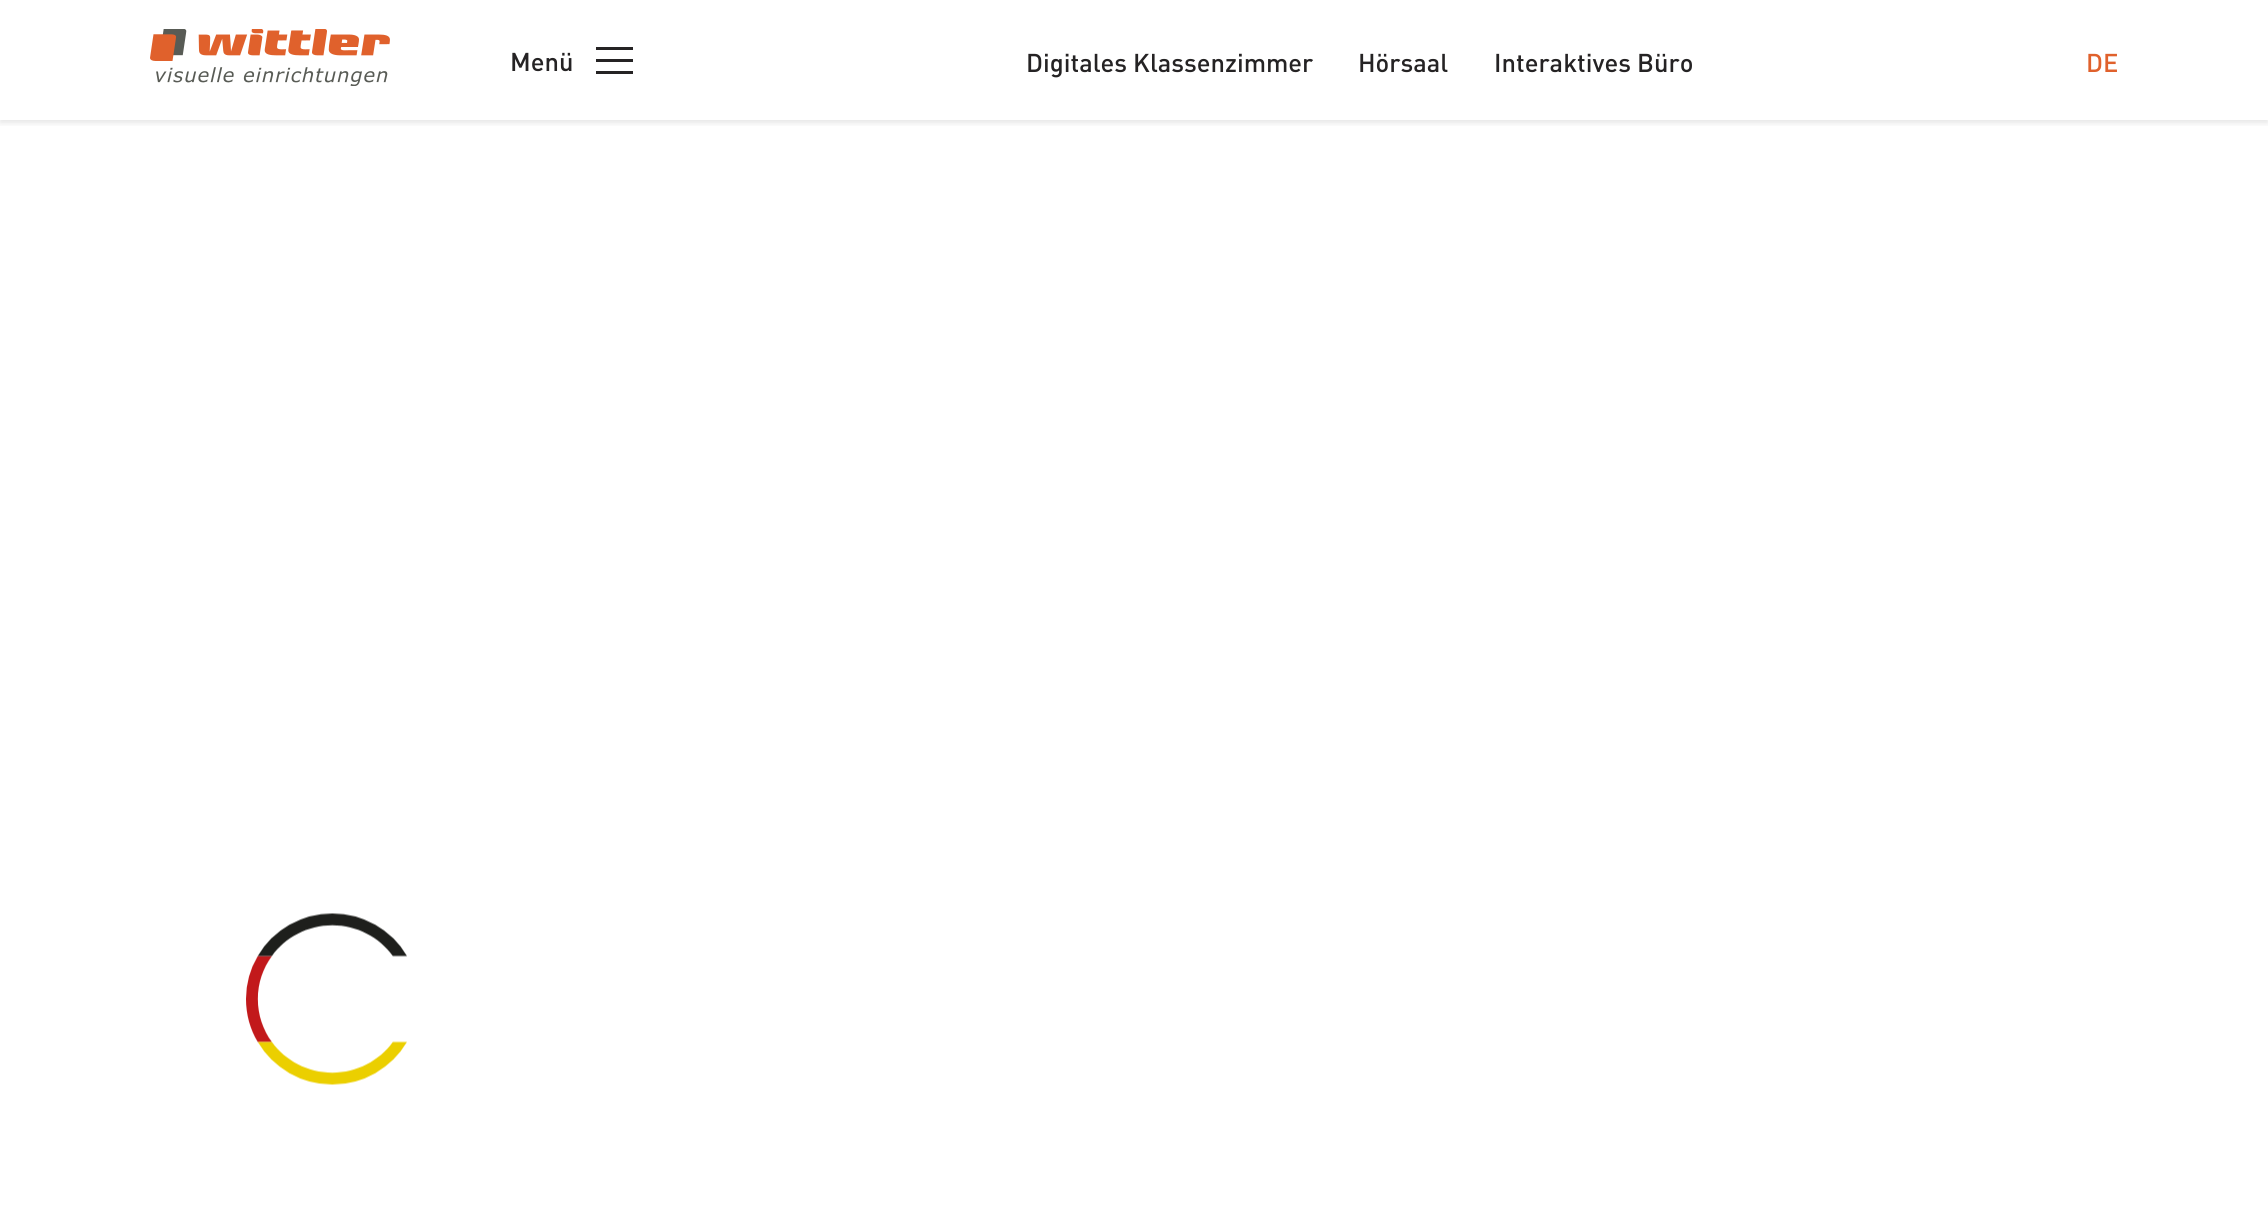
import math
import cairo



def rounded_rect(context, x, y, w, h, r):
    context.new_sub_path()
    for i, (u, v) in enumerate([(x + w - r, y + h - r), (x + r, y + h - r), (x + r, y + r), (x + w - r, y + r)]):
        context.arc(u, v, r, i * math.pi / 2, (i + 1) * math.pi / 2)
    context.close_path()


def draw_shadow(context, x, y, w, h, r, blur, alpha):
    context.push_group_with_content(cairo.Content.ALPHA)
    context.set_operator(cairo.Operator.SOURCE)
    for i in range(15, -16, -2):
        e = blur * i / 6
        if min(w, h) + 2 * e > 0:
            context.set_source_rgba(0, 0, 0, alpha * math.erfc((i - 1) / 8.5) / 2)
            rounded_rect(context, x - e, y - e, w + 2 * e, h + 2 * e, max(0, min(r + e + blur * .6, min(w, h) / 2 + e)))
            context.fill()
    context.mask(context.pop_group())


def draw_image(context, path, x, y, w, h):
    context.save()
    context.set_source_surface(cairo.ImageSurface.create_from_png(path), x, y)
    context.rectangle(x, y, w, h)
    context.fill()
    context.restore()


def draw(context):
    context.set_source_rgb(1, 1, 1)
    context.paint()
    context.save()
    context.rectangle(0, 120, 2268, 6)
    context.clip()
    context.set_source_rgb(0, 0, 0)
    draw_shadow(context, 0, 3, 2268, 120, 0, 3, 0.1)
    context.restore()
    draw_image(context, "images/1.png", 150, 29, 240, 57)
    context.set_source_rgb(37 / 255, 35 / 255, 36 / 255)
    context.rectangle(596, 47, 37, 3)
    context.fill()
    context.rectangle(596, 59, 37, 3)
    context.fill()
    context.rectangle(596, 71, 37, 3)
    context.fill()
    draw_image(context, "images/2.png", 246, 913, 161, 172)
    context.select_font_face("DIN Medium")
    context.set_font_size(25.5)
    context.move_to(510, 71)
    context.show_text("Menü")
    context.move_to(1026, 72)
    context.show_text("Digitales Klassenzimmer")
    context.move_to(1358, 72)
    context.show_text("Hörsaal")
    context.move_to(1494, 72)
    context.show_text("Interaktives Büro")
    context.set_source_rgb(224 / 255, 97 / 255, 44 / 255)
    context.move_to(2086, 72)
    context.show_text("DE")


surface = cairo.ImageSurface(cairo.Format.RGB24, 2268, 1211)
context = cairo.Context(surface)
options = cairo.FontOptions()
options.set_hint_metrics(cairo.HintMetrics.OFF)
options.set_hint_style(cairo.HintStyle.NONE)
context.set_font_options(options)
context.set_miter_limit(4)
draw(context)
surface.write_to_png("out.png")
